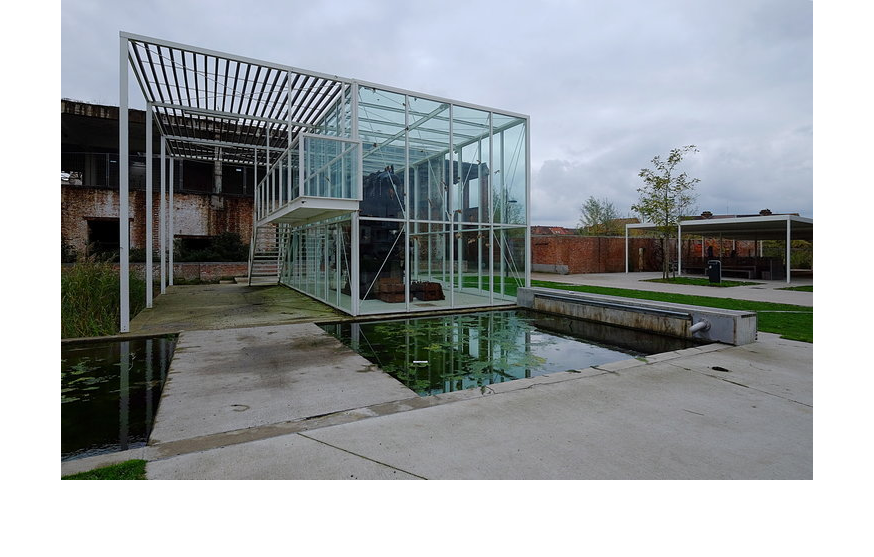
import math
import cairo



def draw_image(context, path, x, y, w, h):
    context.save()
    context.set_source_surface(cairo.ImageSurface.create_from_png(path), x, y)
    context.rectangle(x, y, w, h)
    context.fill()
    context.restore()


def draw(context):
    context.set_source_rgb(1, 1, 1)
    context.paint()
    draw_image(context, "images/1.png", 61, 0, 752, 480)


surface = cairo.ImageSurface(cairo.Format.RGB24, 874, 557)
context = cairo.Context(surface)
options = cairo.FontOptions()
options.set_hint_metrics(cairo.HintMetrics.OFF)
options.set_hint_style(cairo.HintStyle.NONE)
context.set_font_options(options)
context.set_miter_limit(4)
draw(context)
surface.write_to_png("out.png")
